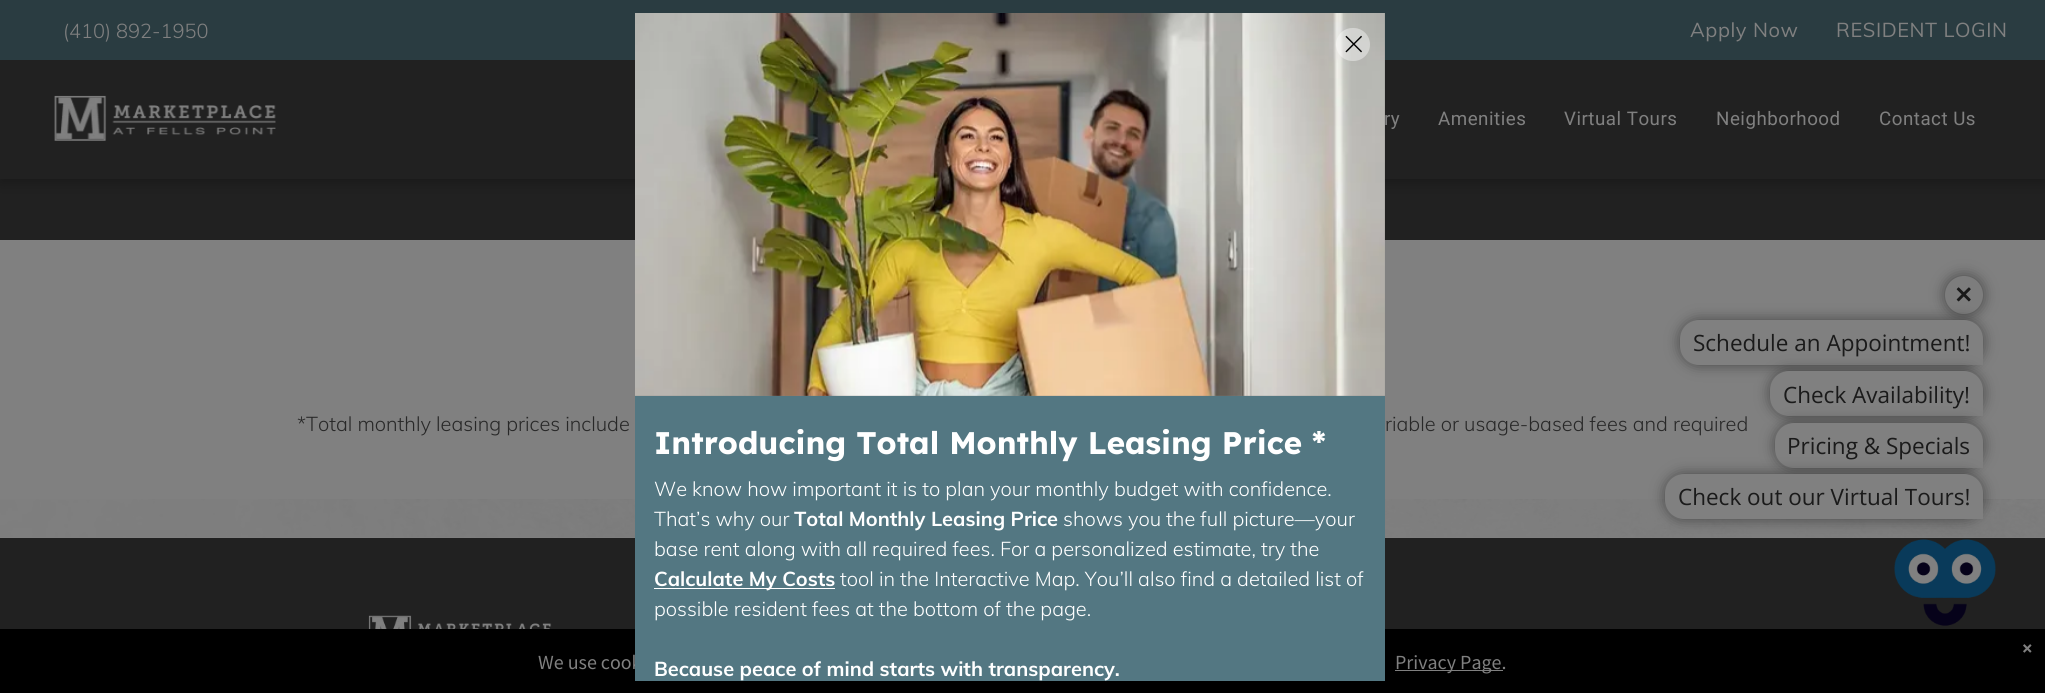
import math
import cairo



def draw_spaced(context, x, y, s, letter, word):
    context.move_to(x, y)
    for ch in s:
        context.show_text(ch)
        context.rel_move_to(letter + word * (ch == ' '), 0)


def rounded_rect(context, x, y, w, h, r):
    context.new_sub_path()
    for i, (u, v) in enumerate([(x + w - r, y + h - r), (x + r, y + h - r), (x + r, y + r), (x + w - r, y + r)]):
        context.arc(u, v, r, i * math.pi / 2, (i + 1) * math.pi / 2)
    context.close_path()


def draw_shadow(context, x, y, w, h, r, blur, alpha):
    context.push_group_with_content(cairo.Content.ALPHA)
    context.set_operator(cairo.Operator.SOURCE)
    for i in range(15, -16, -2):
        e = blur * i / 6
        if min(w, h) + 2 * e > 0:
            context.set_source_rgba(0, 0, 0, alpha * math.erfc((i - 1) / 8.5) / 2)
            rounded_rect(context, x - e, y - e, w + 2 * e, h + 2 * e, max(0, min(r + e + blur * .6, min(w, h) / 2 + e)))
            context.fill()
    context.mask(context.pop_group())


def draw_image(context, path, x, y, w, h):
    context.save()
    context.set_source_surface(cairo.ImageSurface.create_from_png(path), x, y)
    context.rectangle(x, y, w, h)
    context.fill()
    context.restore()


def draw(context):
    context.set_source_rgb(128 / 255, 128 / 255, 128 / 255)
    context.paint()
    context.set_source_rgb(33 / 255, 33 / 255, 33 / 255)
    context.rectangle(0, 179, 2045, 61)
    context.fill()
    context.set_source_rgb(0, 0, 0)
    draw_shadow(context, 0, 4, 2045, 179, 0, 7, 0.25)
    context.set_source_rgb(33 / 255, 33 / 255, 33 / 255)
    context.rectangle(0, 60, 2045, 119)
    context.fill()
    context.set_source_rgb(42 / 255, 60 / 255, 65 / 255)
    context.rectangle(0, 0, 2045, 60)
    context.fill()
    draw_image(context, "images/1.png", 54, 95, 222, 46)
    draw_image(context, "images/2.png", 0, 499, 2045, 39)
    context.set_source_rgb(33 / 255, 33 / 255, 33 / 255)
    context.rectangle(0, 538, 2045, 91)
    context.fill()
    draw_image(context, "images/5.png", 368, 615, 184, 14)
    context.set_source_rgb(0, 0, 0)
    context.rectangle(0, 629, 2045, 64)
    context.fill()
    context.set_source_rgb(128 / 255, 128 / 255, 128 / 255)
    context.rectangle(1395, 670, 108, 1)
    context.fill()
    context.set_source_rgb(0, 0, 0)
    draw_shadow(context, 1945, 276, 38, 38, 19, 7, 0.45)
    context.set_source_rgb(125 / 255, 125 / 255, 125 / 255)
    context.arc(1964, 295, 19, 0, 2 * math.pi)
    context.fill()
    draw_image(context, "images/6.png", 1956, 287, 15, 15)
    context.set_source_rgb(0, 0, 0)
    draw_shadow(context, 1680, 320, 303, 45, 19, 7, 0.45)
    context.set_source_rgb(128 / 255, 128 / 255, 128 / 255)
    context.new_path()
    context.move_to(1699, 320)
    context.line_to(1964, 320)
    context.curve_to(1974.5, 320, 1983, 328.5, 1983, 339)
    context.line_to(1983, 365)
    context.line_to(1699, 365)
    context.curve_to(1688.5, 365, 1680, 356.5, 1680, 346)
    context.line_to(1680, 339)
    context.curve_to(1680, 328.5, 1688.5, 320, 1699, 320)
    context.close_path()
    context.fill()
    context.set_source_rgb(0, 0, 0)
    draw_shadow(context, 1770, 371, 213, 45, 19, 7, 0.45)
    context.set_source_rgb(128 / 255, 128 / 255, 128 / 255)
    context.new_path()
    context.move_to(1789, 371)
    context.line_to(1964, 371)
    context.curve_to(1974.5, 371, 1983, 379.5, 1983, 390)
    context.line_to(1983, 416)
    context.line_to(1789, 416)
    context.curve_to(1778.5, 416, 1770, 407.5, 1770, 397)
    context.line_to(1770, 390)
    context.curve_to(1770, 379.5, 1778.5, 371, 1789, 371)
    context.close_path()
    context.fill()
    context.set_source_rgb(0, 0, 0)
    draw_shadow(context, 1775, 423, 208, 45, 19, 7, 0.45)
    context.set_source_rgb(128 / 255, 128 / 255, 128 / 255)
    context.new_path()
    context.move_to(1794, 423)
    context.line_to(1964, 423)
    context.curve_to(1974.5, 423, 1983, 431.5, 1983, 442)
    context.line_to(1983, 468)
    context.line_to(1794, 468)
    context.curve_to(1783.5, 468, 1775, 459.5, 1775, 449)
    context.line_to(1775, 442)
    context.curve_to(1775, 431.5, 1783.5, 423, 1794, 423)
    context.close_path()
    context.fill()
    context.set_source_rgb(0, 0, 0)
    draw_shadow(context, 1665, 474, 318, 45, 19, 7, 0.45)
    context.set_source_rgb(128 / 255, 128 / 255, 128 / 255)
    context.new_path()
    context.move_to(1684, 474)
    context.line_to(1964, 474)
    context.curve_to(1974.5, 474, 1983, 482.5, 1983, 493)
    context.line_to(1983, 519)
    context.line_to(1684, 519)
    context.curve_to(1673.5, 519, 1665, 510.5, 1665, 500)
    context.line_to(1665, 493)
    context.curve_to(1665, 482.5, 1673.5, 474, 1684, 474)
    context.close_path()
    context.fill()
    draw_image(context, "images/7.png", 1894, 539, 102, 87)
    context.select_font_face("Muli Light")
    context.set_font_size(20)
    context.move_to(63, 38)
    context.show_text("(410) 892-1950")
    context.select_font_face("Muli")
    draw_spaced(context, 1690, 37, "Apply Now", 0.6, 0)
    draw_spaced(context, 1836, 37, "RESIDENT LOGIN", 0.6, 0)
    context.select_font_face("Roboto")
    context.set_font_size(18.75)
    draw_spaced(context, 1384, 125, "ry", 0.5, 0)
    draw_spaced(context, 1438, 125, "Amenities", 0.5, 0)
    draw_spaced(context, 1564, 125, "Virtual Tours", 0.5, 0)
    draw_spaced(context, 1716, 125, "Neighborhood", 0.5, 0)
    draw_spaced(context, 1879, 125, "Contact Us", 0.5, 0)
    context.select_font_face("Muli Light")
    context.set_font_size(20)
    context.set_source_rgb(40 / 255, 40 / 255, 40 / 255)
    context.move_to(297, 431)
    context.show_text("*Total monthly leasing prices include")
    context.move_to(1385, 431)
    context.show_text("riable or usage-based fees and required")
    draw_image(context, "images/4.png", 635, 13, 750, 383)
    context.set_source_rgba(1, 1, 1, 0.4)
    rounded_rect(context, 1336, 28, 34, 33, 16.5)
    context.fill()
    draw_image(context, "images/3.png", 1345, 35, 17, 18)
    context.select_font_face("Source Sans Pro", cairo.FontSlant.NORMAL, cairo.FontWeight.BOLD)
    context.set_source_rgb(128 / 255, 128 / 255, 128 / 255)
    context.move_to(2022, 655)
    context.show_text("×")
    context.select_font_face("Source Sans Pro")
    context.move_to(538, 669)
    context.show_text("We use cook")
    context.set_source_rgb(83 / 255, 119 / 255, 130 / 255)
    context.rectangle(635, 396, 750, 285)
    context.fill()
    context.select_font_face("Muli", cairo.FontSlant.NORMAL, cairo.FontWeight.BOLD)
    context.set_source_rgb(1, 1, 1)
    context.move_to(654, 676)
    context.show_text("Because peace of mind starts with transparency.")
    context.select_font_face("Muli Light")
    context.move_to(654, 616)
    context.show_text("possible resident fees at the bottom of the page.")
    context.move_to(840, 586)
    context.show_text("tool in the Interactive Map. You’ll also find a detailed list of")
    context.rectangle(654, 588, 181, 1)
    context.fill()
    context.select_font_face("Muli", cairo.FontSlant.NORMAL, cairo.FontWeight.BOLD)
    context.move_to(654, 586)
    context.show_text("Calculate My Costs")
    context.select_font_face("Muli Light")
    context.move_to(654, 556)
    context.show_text("base rent along with all required fees. For a personalized estimate, try the")
    context.move_to(1063, 526)
    context.show_text("shows you the full picture—your")
    context.select_font_face("Muli", cairo.FontSlant.NORMAL, cairo.FontWeight.BOLD)
    context.move_to(794, 526)
    context.show_text("Total Monthly Leasing Price")
    context.select_font_face("Muli Light")
    context.move_to(654, 526)
    context.show_text("That’s why our")
    context.move_to(654, 496)
    context.show_text("We know how important it is to plan your monthly budget with confidence.")
    context.select_font_face("Lexend Deca", cairo.FontSlant.NORMAL, cairo.FontWeight.BOLD)
    context.set_font_size(31.25)
    context.move_to(654, 454)
    context.show_text("Introducing Total Monthly Leasing Price *")
    context.select_font_face("Source Sans Pro")
    context.set_font_size(20)
    context.set_source_rgb(128 / 255, 128 / 255, 128 / 255)
    context.move_to(1395, 669)
    context.show_text("Privacy Page.")
    context.select_font_face("Open Sans")
    context.set_font_size(22.5)
    context.set_source_rgb(26 / 255, 26 / 255, 26 / 255)
    context.move_to(1693, 351)
    context.show_text("Schedule an Appointment!")
    context.move_to(1783, 403)
    context.show_text("Check Availability!")
    context.move_to(1787, 454)
    context.show_text("Pricing & Specials")
    context.move_to(1678, 505)
    context.show_text("Check out our Virtual Tours!")


surface = cairo.ImageSurface(cairo.Format.RGB24, 2045, 693)
context = cairo.Context(surface)
options = cairo.FontOptions()
options.set_hint_metrics(cairo.HintMetrics.OFF)
options.set_hint_style(cairo.HintStyle.NONE)
context.set_font_options(options)
context.set_miter_limit(4)
draw(context)
surface.write_to_png("out.png")
